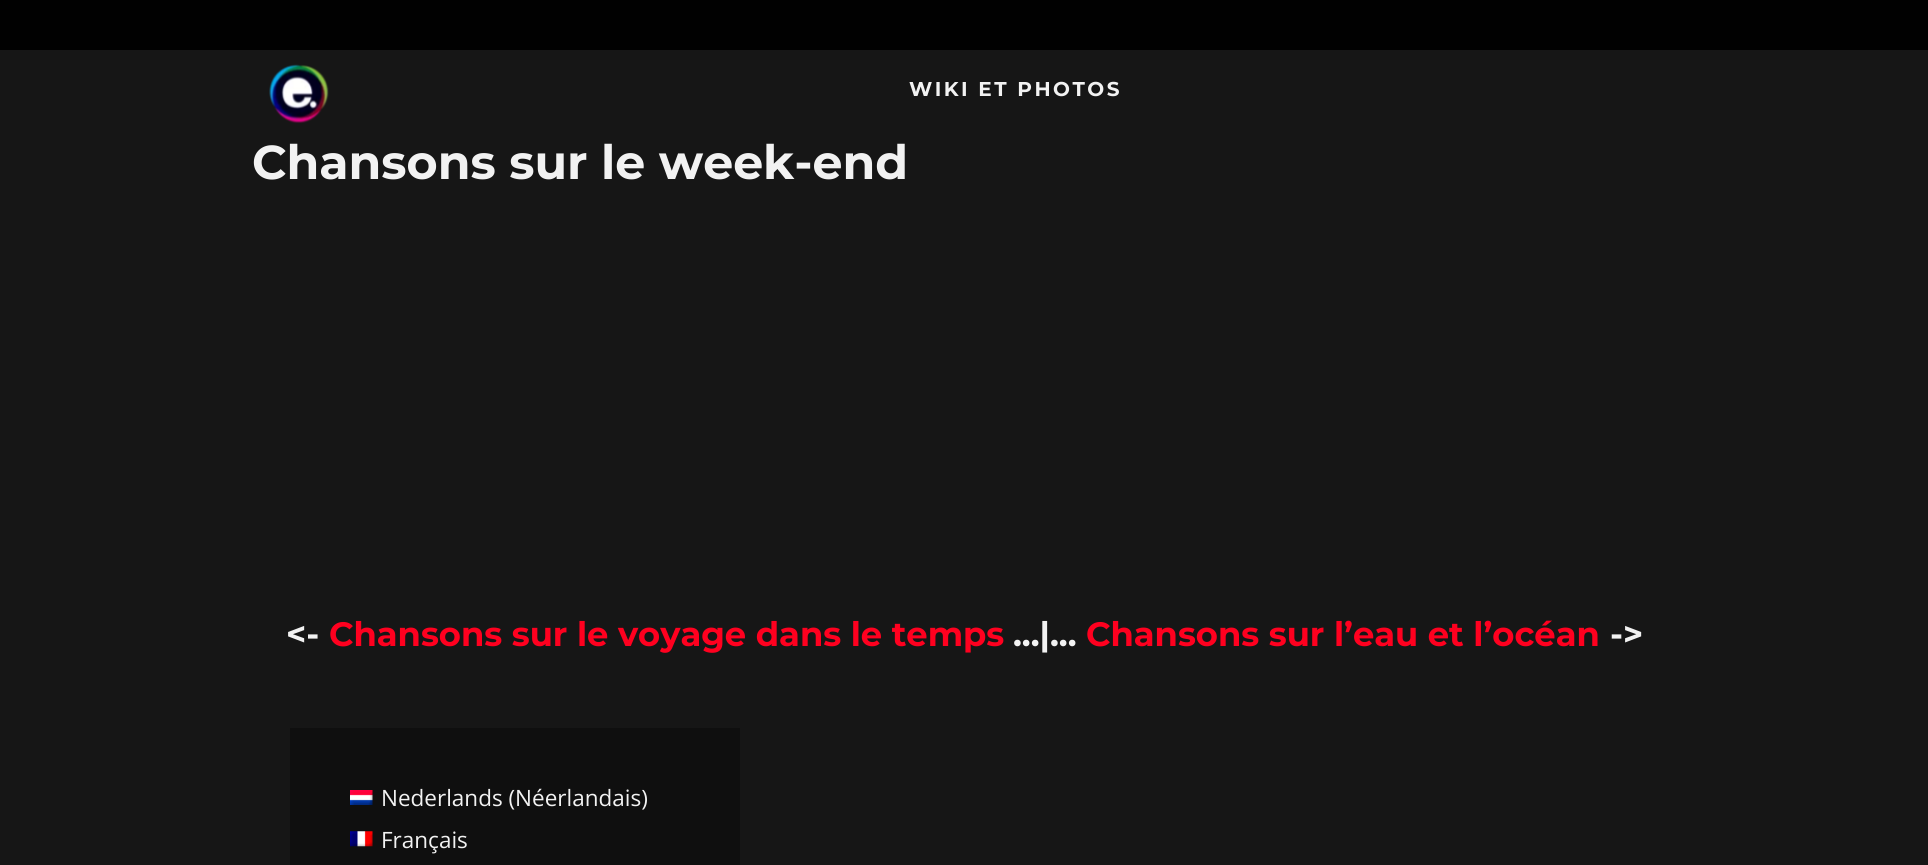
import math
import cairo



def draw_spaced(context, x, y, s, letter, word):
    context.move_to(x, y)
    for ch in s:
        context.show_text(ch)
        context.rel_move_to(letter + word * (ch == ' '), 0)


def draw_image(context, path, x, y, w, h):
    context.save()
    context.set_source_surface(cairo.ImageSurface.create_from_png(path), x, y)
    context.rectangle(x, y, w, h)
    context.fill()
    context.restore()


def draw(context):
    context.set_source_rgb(22 / 255, 22 / 255, 22 / 255)
    context.paint()
    context.set_source_rgb(1 / 255, 1 / 255, 1 / 255)
    context.rectangle(0, 0, 1928, 50)
    context.fill()
    draw_image(context, "images/1.png", 269, 64, 60, 60)
    context.set_source_rgb(15 / 255, 15 / 255, 15 / 255)
    context.rectangle(290, 728, 450, 137)
    context.fill()
    draw_image(context, "images/2.png", 350, 790, 23, 15)
    draw_image(context, "images/3.png", 350, 831, 23, 16)
    context.select_font_face("Montserrat", cairo.FontSlant.NORMAL, cairo.FontWeight.BOLD)
    context.set_font_size(20)
    context.set_source_rgb(242 / 255, 242 / 255, 242 / 255)
    draw_spaced(context, 909, 96, "WIKI ET PHOTOS", 2.5, 0)
    context.set_font_size(47.5)
    context.move_to(252, 179)
    context.show_text("Chansons sur le week-end")
    context.set_font_size(33.75)
    context.move_to(286, 646)
    context.show_text("<-")
    context.set_source_rgb(1, 0, 31 / 255)
    context.move_to(329, 646)
    context.show_text("Chansons sur le voyage dans le temps")
    context.set_source_rgb(242 / 255, 242 / 255, 242 / 255)
    context.move_to(1013, 646)
    context.show_text("...|...")
    context.set_source_rgb(1, 0, 31 / 255)
    context.move_to(1086, 646)
    context.show_text("Chansons sur l’eau et l’océan")
    context.set_source_rgb(242 / 255, 242 / 255, 242 / 255)
    context.move_to(1610, 646)
    context.show_text("->")
    context.select_font_face("Open Sans")
    context.set_font_size(22.5)
    context.move_to(381, 806)
    context.show_text("Nederlands (Néerlandais)")
    context.move_to(381, 848)
    context.show_text("Français")


surface = cairo.ImageSurface(cairo.Format.RGB24, 1928, 865)
context = cairo.Context(surface)
options = cairo.FontOptions()
options.set_hint_metrics(cairo.HintMetrics.OFF)
options.set_hint_style(cairo.HintStyle.NONE)
context.set_font_options(options)
context.set_miter_limit(4)
draw(context)
surface.write_to_png("out.png")
